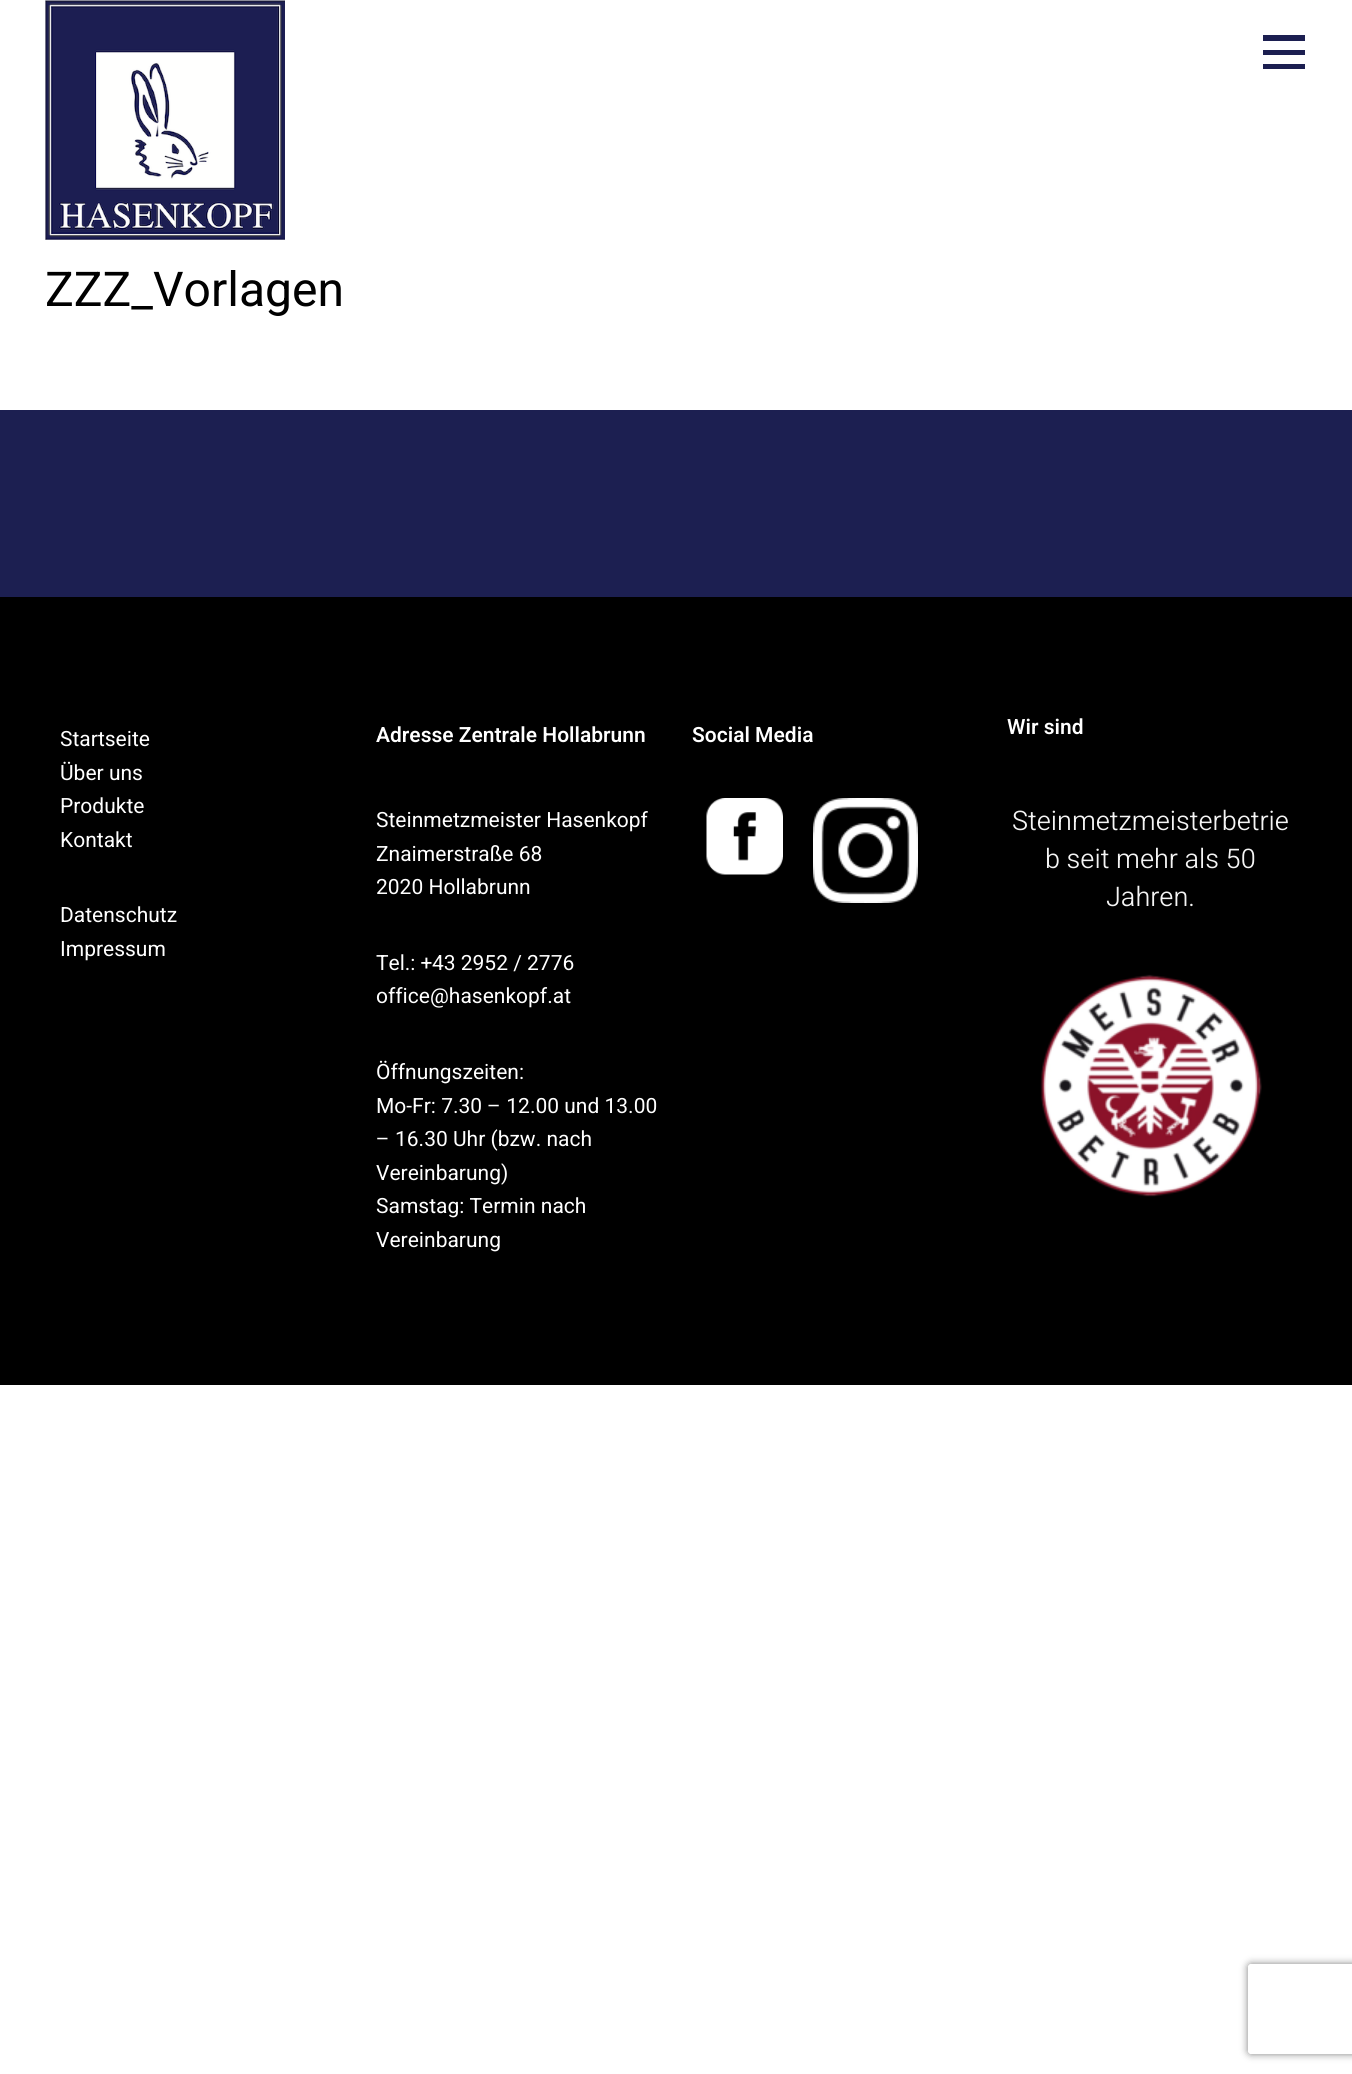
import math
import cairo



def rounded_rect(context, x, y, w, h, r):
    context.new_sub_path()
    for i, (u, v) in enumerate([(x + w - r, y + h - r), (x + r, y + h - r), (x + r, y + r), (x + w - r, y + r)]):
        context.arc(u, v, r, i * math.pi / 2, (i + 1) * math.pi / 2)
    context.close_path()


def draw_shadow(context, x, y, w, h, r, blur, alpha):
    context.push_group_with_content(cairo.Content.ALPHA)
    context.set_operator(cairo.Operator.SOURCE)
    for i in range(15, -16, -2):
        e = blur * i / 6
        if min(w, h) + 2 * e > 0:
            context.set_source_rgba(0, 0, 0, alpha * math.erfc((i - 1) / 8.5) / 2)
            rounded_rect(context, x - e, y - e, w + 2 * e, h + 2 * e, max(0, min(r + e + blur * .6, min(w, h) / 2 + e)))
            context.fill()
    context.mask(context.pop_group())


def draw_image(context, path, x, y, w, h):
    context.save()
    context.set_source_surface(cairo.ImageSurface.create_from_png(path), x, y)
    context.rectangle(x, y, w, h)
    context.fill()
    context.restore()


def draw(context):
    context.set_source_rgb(1, 1, 1)
    context.paint()
    context.set_source_rgb(28 / 255, 31 / 255, 81 / 255)
    context.rectangle(0, 410, 1352, 187)
    context.fill()
    draw_image(context, "images/1.png", 45, 0, 240, 240)
    context.new_path()
    context.move_to(1305, 35)
    context.line_to(1305, 41)
    context.line_to(1263, 41)
    context.line_to(1263, 35)
    context.close_path()
    context.move_to(1263, 55)
    context.line_to(1305, 55)
    context.line_to(1305, 50)
    context.line_to(1263, 50)
    context.close_path()
    context.move_to(1263, 69)
    context.line_to(1305, 69)
    context.line_to(1305, 64)
    context.line_to(1263, 64)
    context.close_path()
    context.fill()
    context.set_source_rgb(0, 0, 0)
    context.rectangle(0, 597, 1352, 788)
    context.fill()
    draw_image(context, "images/2.png", 706, 798, 77, 77)
    draw_image(context, "images/3.png", 813, 798, 105, 105)
    draw_image(context, "images/4.png", 1040, 974, 222, 223)
    context.save()
    context.set_fill_rule(cairo.FillRule.EVEN_ODD)
    context.new_path()
    context.move_to(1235, 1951)
    context.line_to(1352, 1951)
    context.line_to(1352, 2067)
    context.line_to(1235, 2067)
    context.close_path()
    context.move_to(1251, 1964)
    context.line_to(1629, 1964)
    context.curve_to(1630.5, 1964, 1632, 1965.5, 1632, 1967)
    context.line_to(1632, 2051)
    context.curve_to(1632, 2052.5, 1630.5, 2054, 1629, 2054)
    context.line_to(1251, 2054)
    context.curve_to(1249.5, 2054, 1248, 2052.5, 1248, 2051)
    context.line_to(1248, 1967)
    context.curve_to(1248, 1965.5, 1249.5, 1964, 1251, 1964)
    context.close_path()
    context.clip()
    context.set_source_rgb(128 / 255, 128 / 255, 128 / 255)
    draw_shadow(context, 1248, 1964, 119, 90, 3, 4, 1)
    context.restore()
    context.select_font_face("Heebo")
    context.set_font_size(48)
    context.move_to(45, 306)
    context.show_text("ZZZ_Vorlagen")
    context.set_font_size(21)
    context.set_source_rgb(1, 1, 1)
    context.move_to(60, 746)
    context.show_text("Startseite")
    context.move_to(60, 780)
    context.show_text("Über uns")
    context.move_to(60, 813)
    context.show_text("Produkte")
    context.move_to(60, 847)
    context.show_text("Kontakt")
    context.move_to(60, 922)
    context.show_text("Datenschutz")
    context.move_to(60, 956)
    context.show_text("Impressum")
    context.select_font_face("Heebo SemiBold")
    context.move_to(376, 742)
    context.show_text("Adresse Zentrale Hollabrunn")
    context.select_font_face("Heebo")
    context.move_to(376, 827)
    context.show_text("Steinmetzmeister Hasenkopf")
    context.move_to(376, 861)
    context.show_text("Znaimerstraße 68")
    context.move_to(376, 894)
    context.show_text("2020 Hollabrunn")
    context.move_to(376, 970)
    context.show_text("Tel.: +43 2952 / 2776")
    context.move_to(376, 1003)
    context.show_text("office@hasenkopf.at")
    context.move_to(376, 1079)
    context.show_text("Öffnungszeiten:")
    context.move_to(376, 1113)
    context.show_text("Mo-Fr: 7.30 – 12.00 und 13.00")
    context.move_to(376, 1146)
    context.show_text("– 16.30 Uhr (bzw. nach")
    context.move_to(376, 1180)
    context.show_text("Vereinbarung)")
    context.move_to(376, 1213)
    context.show_text("Samstag: Termin nach")
    context.move_to(376, 1247)
    context.show_text("Vereinbarung")
    context.select_font_face("Heebo SemiBold")
    context.move_to(692, 742)
    context.show_text("Social Media")
    context.move_to(1007, 734)
    context.show_text("Wir sind")
    context.select_font_face("Heebo Light")
    context.set_font_size(27)
    context.set_source_rgb(245 / 255, 245 / 255, 245 / 255)
    context.move_to(1012, 830)
    context.show_text("Steinmetzmeisterbetrie")
    context.move_to(1045, 868)
    context.show_text("b seit mehr als 50")
    context.move_to(1106, 906)
    context.show_text("Jahren.")


surface = cairo.ImageSurface(cairo.Format.RGB24, 1352, 2074)
context = cairo.Context(surface)
options = cairo.FontOptions()
options.set_hint_metrics(cairo.HintMetrics.OFF)
options.set_hint_style(cairo.HintStyle.NONE)
context.set_font_options(options)
context.set_miter_limit(4)
draw(context)
surface.write_to_png("out.png")
